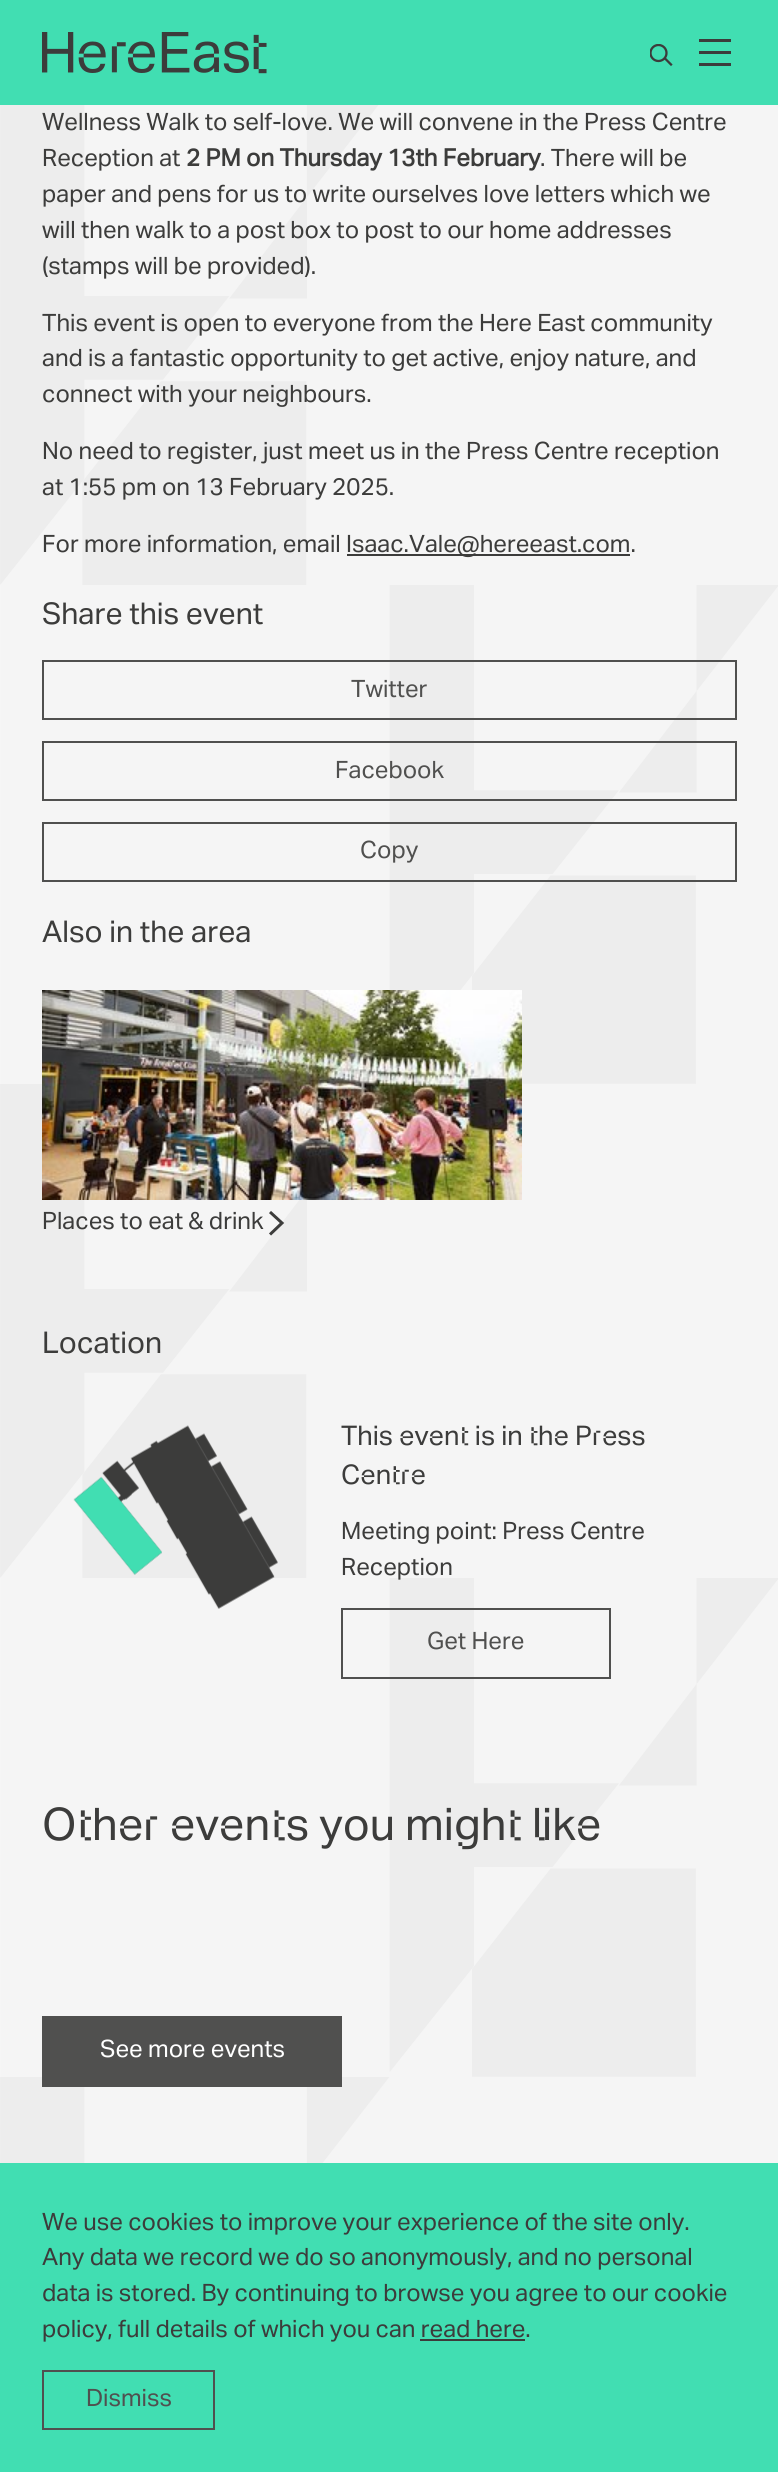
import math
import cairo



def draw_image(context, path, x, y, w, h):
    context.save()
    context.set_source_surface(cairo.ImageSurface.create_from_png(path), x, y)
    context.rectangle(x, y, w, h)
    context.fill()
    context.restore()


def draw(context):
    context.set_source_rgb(1, 1, 1)
    context.paint()
    draw_image(context, "images/1.png", 0, 105, 778, 2058)
    context.set_source_rgb(65 / 255, 222 / 255, 178 / 255)
    context.rectangle(0, 0, 778, 105)
    context.fill()
    draw_image(context, "images/2.png", 42, 32, 225, 42)
    context.save()
    context.rectangle(650, 44, 24, 24)
    context.clip()
    context.arc(658.5, 53, 8, 0, 2 * math.pi)
    context.set_source_rgb(60 / 255, 60 / 255, 59 / 255)
    context.set_line_width(2.3)
    context.stroke()
    context.restore()
    context.new_path()
    context.move_to(665, 58.5)
    context.line_to(671, 64.5)
    context.set_source_rgb(60 / 255, 60 / 255, 59 / 255)
    context.set_line_width(2.3)
    context.set_line_cap(cairo.LineCap.SQUARE)
    context.stroke()
    context.rectangle(699, 39, 32, 3)
    context.fill()
    context.rectangle(699, 51, 32, 3)
    context.fill()
    context.rectangle(699, 63, 32, 3)
    context.fill()
    context.rectangle(347, 554, 283, 2)
    context.fill()
    context.rectangle(43, 661, 693, 58)
    context.set_source_rgb(80 / 255, 80 / 255, 79 / 255)
    context.set_line_width(2)
    context.set_line_cap(cairo.LineCap.BUTT)
    context.stroke()
    context.rectangle(43, 742, 693, 58)
    context.stroke()
    context.rectangle(43, 823, 693, 58)
    context.stroke()
    draw_image(context, "images/3.png", 42, 990, 480, 210)
    context.new_path()
    context.move_to(270, 1212)
    context.line_to(282, 1223)
    context.line_to(270, 1234.5)
    context.set_source_rgb(60 / 255, 60 / 255, 59 / 255)
    context.set_line_width(3)
    context.stroke()
    draw_image(context, "images/4.png", 73, 1425, 205, 184)
    context.rectangle(342, 1609, 268, 69)
    context.set_source_rgb(80 / 255, 80 / 255, 79 / 255)
    context.set_line_width(2)
    context.stroke()
    context.rectangle(42, 2016, 300, 71)
    context.fill()
    context.set_source_rgb(65 / 255, 222 / 255, 178 / 255)
    context.rectangle(0, 2163, 778, 309)
    context.fill()
    context.set_source_rgb(60 / 255, 60 / 255, 59 / 255)
    context.rectangle(420, 2339, 105, 2)
    context.fill()
    context.rectangle(43, 2371, 171, 58)
    context.set_source_rgb(80 / 255, 80 / 255, 79 / 255)
    context.stroke()
    context.select_font_face("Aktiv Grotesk")
    context.set_font_size(23.95)
    context.set_source_rgb(60 / 255, 60 / 255, 59 / 255)
    context.move_to(42, 130)
    context.show_text("Wellness Walk to self-love. We will convene in the Press Centre")
    context.move_to(42, 166)
    context.show_text("Reception at")
    context.select_font_face("Aktiv Grotesk", cairo.FontSlant.NORMAL, cairo.FontWeight.BOLD)
    context.move_to(186, 166)
    context.show_text("2 PM on Thursday 13th February")
    context.select_font_face("Aktiv Grotesk")
    context.move_to(540, 166)
    context.show_text(". There will be")
    context.move_to(42, 202)
    context.show_text("paper and pens for us to write ourselves love letters which we")
    context.move_to(42, 238)
    context.show_text("will then walk to a post box to post to our home addresses")
    context.move_to(42, 274)
    context.show_text("(stamps will be provided).")
    context.move_to(42, 331)
    context.show_text("This event is open to everyone from the Here East community")
    context.move_to(42, 366)
    context.show_text("and is a fantastic opportunity to get active, enjoy nature, and")
    context.move_to(42, 402)
    context.show_text("connect with your neighbours.")
    context.move_to(42, 459)
    context.show_text("No need to register, just meet us in the Press Centre reception")
    context.move_to(42, 495)
    context.show_text("at 1:55 pm on 13 February 2025.")
    context.move_to(42, 552)
    context.show_text("For more information, email")
    context.move_to(346, 552)
    context.show_text("Isaac.Vale@hereeast.com.")
    context.set_font_size(30)
    context.move_to(42, 624)
    context.show_text("Share this event")
    context.set_font_size(23.95)
    context.set_source_rgb(80 / 255, 80 / 255, 79 / 255)
    context.move_to(351, 697)
    context.show_text("Twitter")
    context.move_to(335, 778)
    context.show_text("Facebook")
    context.move_to(360, 858)
    context.show_text("Copy")
    context.set_font_size(30)
    context.set_source_rgb(60 / 255, 60 / 255, 59 / 255)
    context.move_to(42, 942)
    context.show_text("Also in the area")
    context.set_font_size(23.95)
    context.move_to(42, 1229)
    context.show_text("Places to eat & drink")
    context.set_font_size(30)
    context.move_to(42, 1353)
    context.show_text("Location")
    context.select_font_face("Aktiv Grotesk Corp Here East")
    context.set_font_size(27.1)
    context.move_to(341, 1445)
    context.show_text("This event is in the Press")
    context.move_to(341, 1484)
    context.show_text("Centre")
    context.select_font_face("Aktiv Grotesk")
    context.set_font_size(23.95)
    context.move_to(341, 1539)
    context.show_text("Meeting point: Press Centre")
    context.move_to(341, 1575)
    context.show_text("Reception")
    context.set_source_rgb(80 / 255, 80 / 255, 79 / 255)
    context.move_to(427, 1649)
    context.show_text("Get Here")
    context.select_font_face("Aktiv Grotesk Corp Here East")
    context.set_font_size(45)
    context.set_source_rgb(60 / 255, 60 / 255, 59 / 255)
    context.move_to(42, 1840)
    context.show_text("Other events you might like")
    context.select_font_face("Aktiv Grotesk")
    context.set_font_size(23.95)
    context.set_source_rgb(1, 1, 1)
    context.move_to(100, 2057)
    context.show_text("See more events")
    context.set_source_rgb(60 / 255, 60 / 255, 59 / 255)
    context.move_to(42, 2230)
    context.show_text("We use cookies to improve your experience of the site only.")
    context.move_to(42, 2265)
    context.show_text("Any data we record we do so anonymously, and no personal")
    context.move_to(42, 2301)
    context.show_text("data is stored. By continuing to browse you agree to our cookie")
    context.move_to(42, 2337)
    context.show_text("policy, full details of which you can read here.")
    context.set_source_rgb(80 / 255, 80 / 255, 79 / 255)
    context.move_to(86, 2406)
    context.show_text("Dismiss")


surface = cairo.ImageSurface(cairo.Format.RGB24, 778, 2472)
context = cairo.Context(surface)
options = cairo.FontOptions()
options.set_hint_metrics(cairo.HintMetrics.OFF)
options.set_hint_style(cairo.HintStyle.NONE)
context.set_font_options(options)
context.set_miter_limit(4)
draw(context)
surface.write_to_png("out.png")
